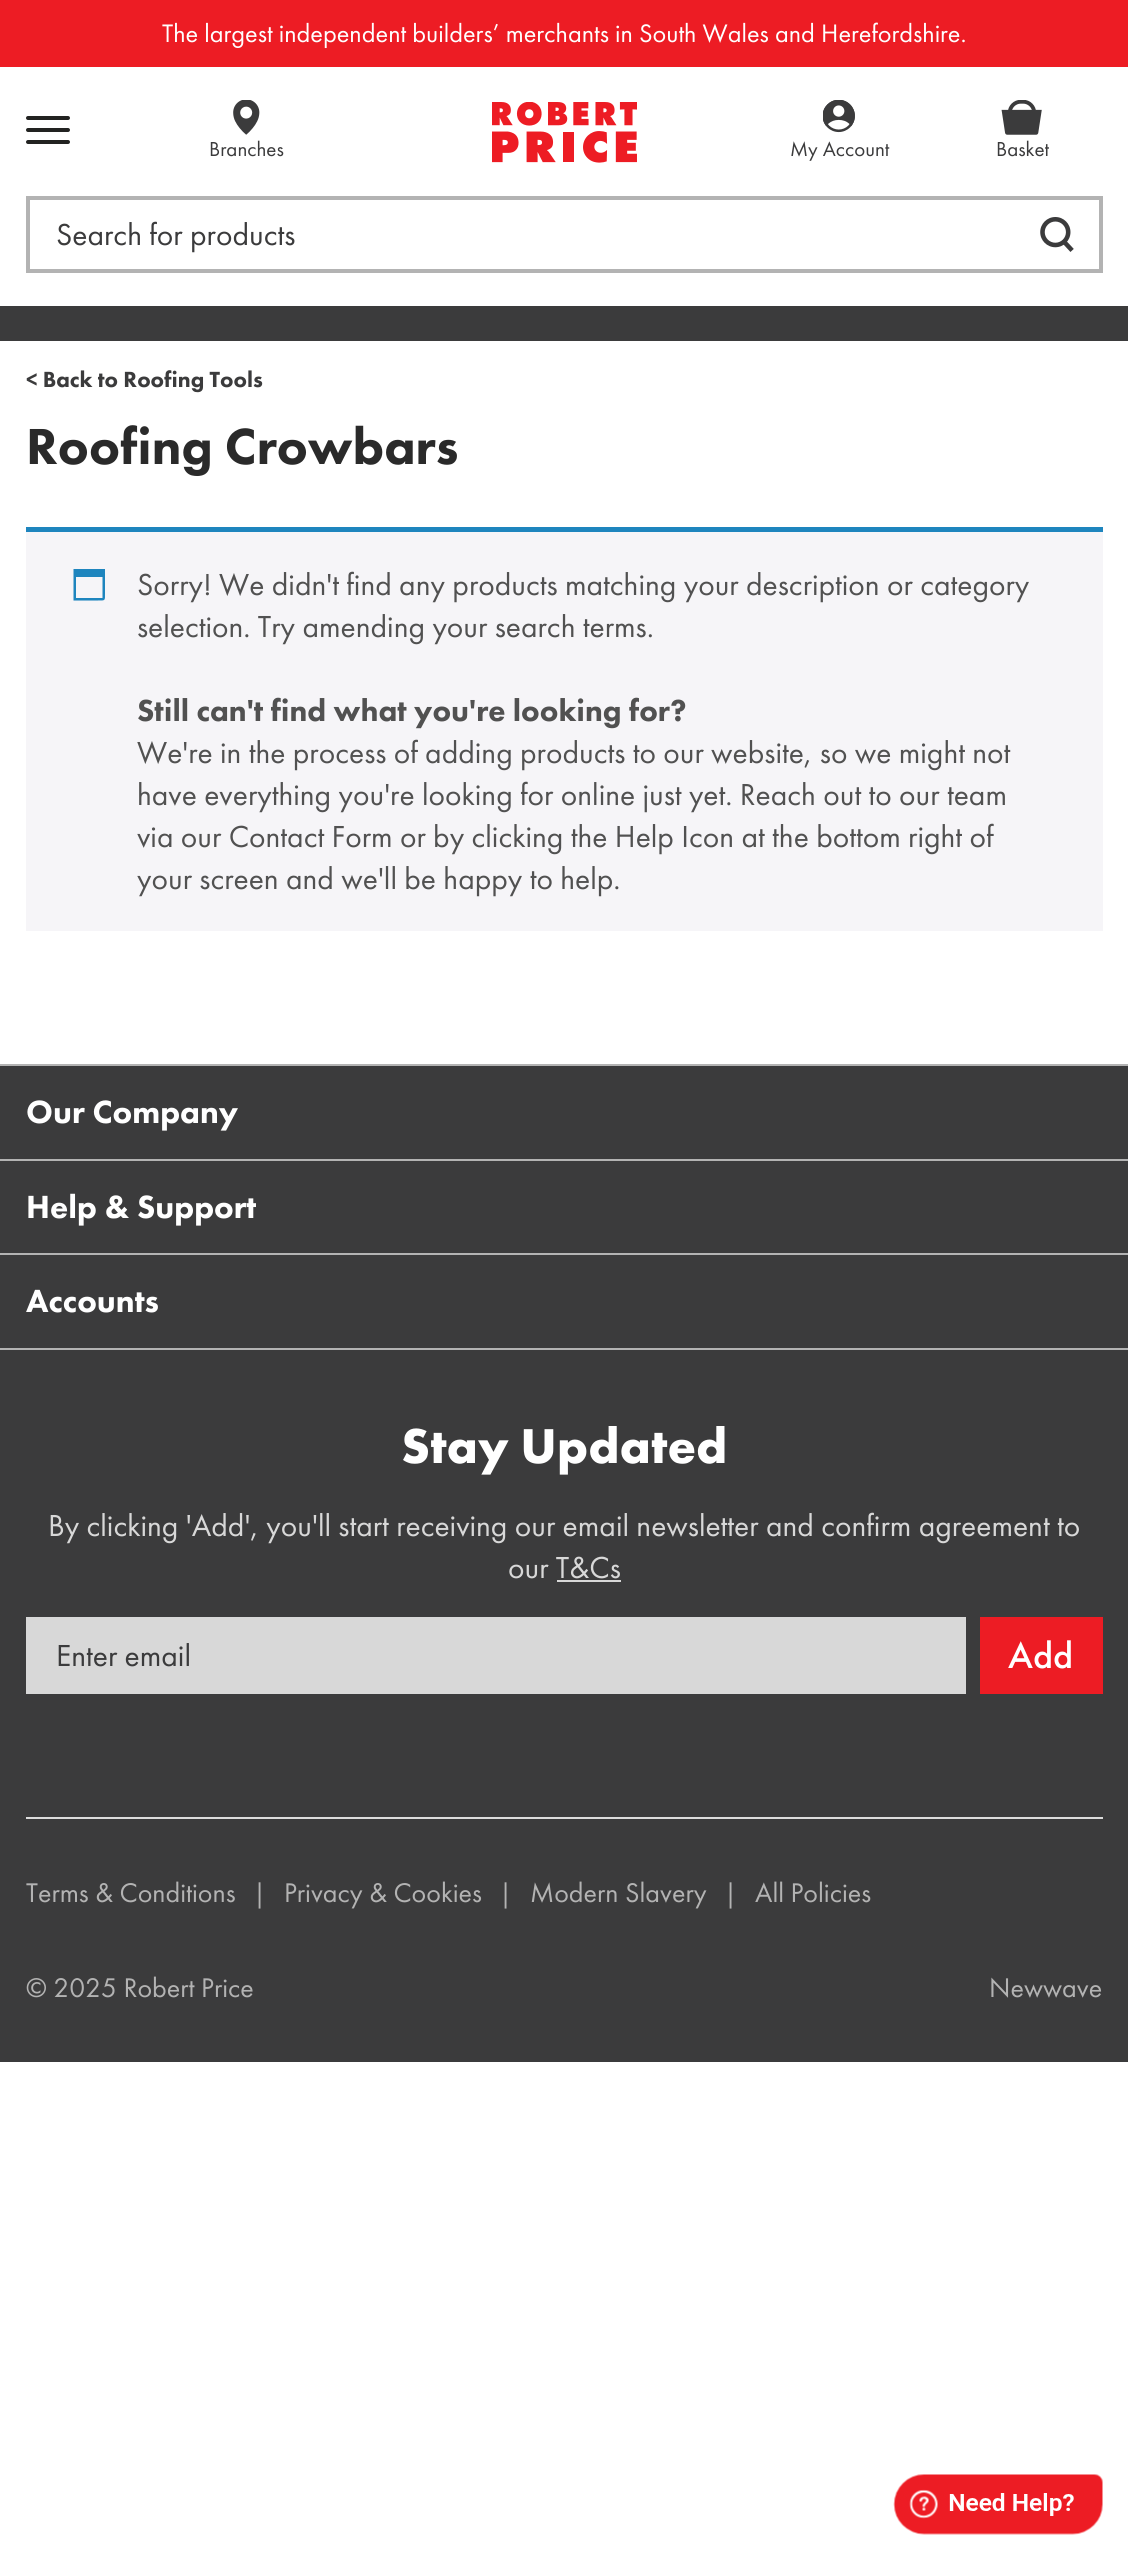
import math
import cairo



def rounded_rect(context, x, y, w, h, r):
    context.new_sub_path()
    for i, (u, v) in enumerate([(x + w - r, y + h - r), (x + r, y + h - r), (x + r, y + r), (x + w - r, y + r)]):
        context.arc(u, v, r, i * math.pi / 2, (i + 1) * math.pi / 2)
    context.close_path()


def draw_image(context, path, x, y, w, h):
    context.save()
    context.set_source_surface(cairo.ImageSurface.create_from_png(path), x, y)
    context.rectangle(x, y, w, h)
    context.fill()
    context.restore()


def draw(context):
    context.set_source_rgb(1, 1, 1)
    context.paint()
    context.set_source_rgb(237 / 255, 28 / 255, 36 / 255)
    context.rectangle(0, 0, 1128, 67)
    context.fill()
    context.set_source_rgb(34 / 255, 35 / 255, 33 / 255)
    rounded_rect(context, 26, 116, 44, 4, 2)
    context.fill()
    rounded_rect(context, 26, 128, 44, 4, 2)
    context.fill()
    rounded_rect(context, 26, 140, 44, 4, 2)
    context.fill()
    draw_image(context, "images/1.png", 492, 102, 145, 61)
    draw_image(context, "images/2.png", 233, 100, 27, 35)
    draw_image(context, "images/3.png", 823, 100, 32, 33)
    draw_image(context, "images/4.png", 1001, 100, 41, 35)
    draw_image(context, "images/5.png", 1040, 217, 34, 35)
    context.rectangle(28, 198, 1073, 73)
    context.set_source_rgb(179 / 255, 179 / 255, 179 / 255)
    context.set_line_width(4)
    context.stroke()
    context.set_source_rgb(59 / 255, 59 / 255, 60 / 255)
    context.rectangle(0, 306, 1128, 35)
    context.fill()
    context.set_source_rgb(246 / 255, 245 / 255, 248 / 255)
    context.rectangle(26, 532, 1077, 399)
    context.fill()
    context.set_source_rgb(30 / 255, 133 / 255, 190 / 255)
    context.rectangle(26, 527, 1077, 5)
    context.fill()
    context.new_path()
    context.move_to(102.5, 577)
    context.line_to(76, 577)
    context.line_to(76, 598)
    context.line_to(102.5, 598)
    context.close_path()
    context.move_to(105, 569)
    context.line_to(105, 593)
    context.curve_to(105, 601, 105.5, 600.5, 98, 600.5)
    context.line_to(73.5, 600.5)
    context.line_to(73.5, 569)
    context.close_path()
    context.fill()
    context.set_source_rgb(59 / 255, 59 / 255, 60 / 255)
    context.rectangle(0, 1066, 1128, 996)
    context.fill()
    context.set_source_rgb(179 / 255, 179 / 255, 179 / 255)
    context.rectangle(0, 1064, 1128, 2)
    context.fill()
    context.rectangle(0, 1159, 1128, 2)
    context.fill()
    context.rectangle(0, 1253, 1128, 2)
    context.fill()
    context.rectangle(0, 1348, 1128, 2)
    context.fill()
    context.set_source_rgb(216 / 255, 216 / 255, 216 / 255)
    context.rectangle(557, 1580, 64, 2)
    context.fill()
    context.rectangle(26, 1617, 940, 77)
    context.fill()
    context.set_source_rgb(237 / 255, 28 / 255, 36 / 255)
    context.rectangle(980, 1617, 123, 77)
    context.fill()
    context.set_source_rgb(220 / 255, 220 / 255, 220 / 255)
    context.rectangle(26, 1817, 1077, 2)
    context.fill()
    draw_image(context, "images/6.png", 893, 2474, 210, 61)
    context.select_font_face("Futura PT")
    context.set_font_size(26.25)
    context.set_source_rgb(1, 1, 1)
    context.move_to(162, 42)
    context.show_text("The largest independent builders’ merchants in South Wales and Herefordshire.")
    context.set_font_size(21)
    context.set_source_rgb(59 / 255, 59 / 255, 60 / 255)
    context.move_to(209, 156)
    context.show_text("Branches")
    context.move_to(790, 156)
    context.show_text("My Account")
    context.move_to(996, 156)
    context.show_text("Basket")
    context.set_font_size(31.5)
    context.move_to(56, 245)
    context.show_text("Search for products")
    context.select_font_face("Futura PT Black")
    context.set_font_size(22.75)
    context.move_to(26, 387)
    context.show_text("< Back to Roofing Tools")
    context.set_font_size(52.5)
    context.set_source_rgb(42 / 255, 42 / 255, 42 / 255)
    context.move_to(26, 464)
    context.show_text("Roofing Crowbars")
    context.select_font_face("Futura PT")
    context.set_font_size(31.5)
    context.set_source_rgb(81 / 255, 81 / 255, 81 / 255)
    context.move_to(137, 595)
    context.show_text("Sorry! We didn't find any products matching your description or category")
    context.move_to(137, 637)
    context.show_text("selection. Try amending your search terms.")
    context.select_font_face("Futura PT Black")
    context.move_to(137, 721)
    context.show_text("Still can't find what you're looking for?")
    context.select_font_face("Futura PT")
    context.move_to(137, 763)
    context.show_text("We're in the process of adding products to our website, so we might not")
    context.move_to(137, 805)
    context.show_text("have everything you're looking for online just yet. Reach out to our team")
    context.move_to(137, 847)
    context.show_text("via our Contact Form or by clicking the Help Icon at the bottom right of")
    context.move_to(137, 889)
    context.show_text("your screen and we'll be happy to help.")
    context.select_font_face("Futura PT Black")
    context.set_font_size(33.25)
    context.set_source_rgb(1, 1, 1)
    context.move_to(26, 1123)
    context.show_text("Our Company")
    context.move_to(26, 1218)
    context.show_text("Help & Support")
    context.move_to(26, 1312)
    context.show_text("Accounts")
    context.select_font_face("Futura PT", cairo.FontSlant.NORMAL, cairo.FontWeight.BOLD)
    context.set_font_size(50.75)
    context.move_to(401, 1463)
    context.show_text("Stay Updated")
    context.select_font_face("Futura PT")
    context.set_font_size(31.5)
    context.set_source_rgb(216 / 255, 216 / 255, 216 / 255)
    context.move_to(48, 1536)
    context.show_text("By clicking 'Add', you'll start receiving our email newsletter and confirm agreement to")
    context.move_to(508, 1578)
    context.show_text("our T&Cs")
    context.set_source_rgb(59 / 255, 59 / 255, 60 / 255)
    context.move_to(56, 1666)
    context.show_text("Enter email")
    context.select_font_face("Futura PT Medium")
    context.set_font_size(38)
    context.set_source_rgb(1, 1, 1)
    context.move_to(1008, 1668)
    context.show_text("Add")
    context.select_font_face("Futura PT")
    context.set_font_size(28)
    context.set_source_rgb(179 / 255, 179 / 255, 179 / 255)
    context.move_to(26, 1902)
    context.show_text("Terms & Conditions")
    context.set_font_size(26.25)
    context.move_to(253, 1902)
    context.show_text("|")
    context.set_font_size(28)
    context.move_to(284, 1902)
    context.show_text("Privacy & Cookies")
    context.set_font_size(26.25)
    context.move_to(499, 1902)
    context.show_text("|")
    context.set_font_size(28)
    context.move_to(530, 1902)
    context.show_text("Modern Slavery")
    context.set_font_size(26.25)
    context.move_to(724, 1902)
    context.show_text("|")
    context.set_font_size(28)
    context.move_to(755, 1902)
    context.show_text("All Policies")
    context.move_to(26, 1997)
    context.show_text("© 2025 Robert Price")
    context.move_to(989, 1997)
    context.show_text("Newwave")


surface = cairo.ImageSurface(cairo.Format.RGB24, 1128, 2570)
context = cairo.Context(surface)
options = cairo.FontOptions()
options.set_hint_metrics(cairo.HintMetrics.OFF)
options.set_hint_style(cairo.HintStyle.NONE)
context.set_font_options(options)
context.set_miter_limit(4)
draw(context)
surface.write_to_png("out.png")
